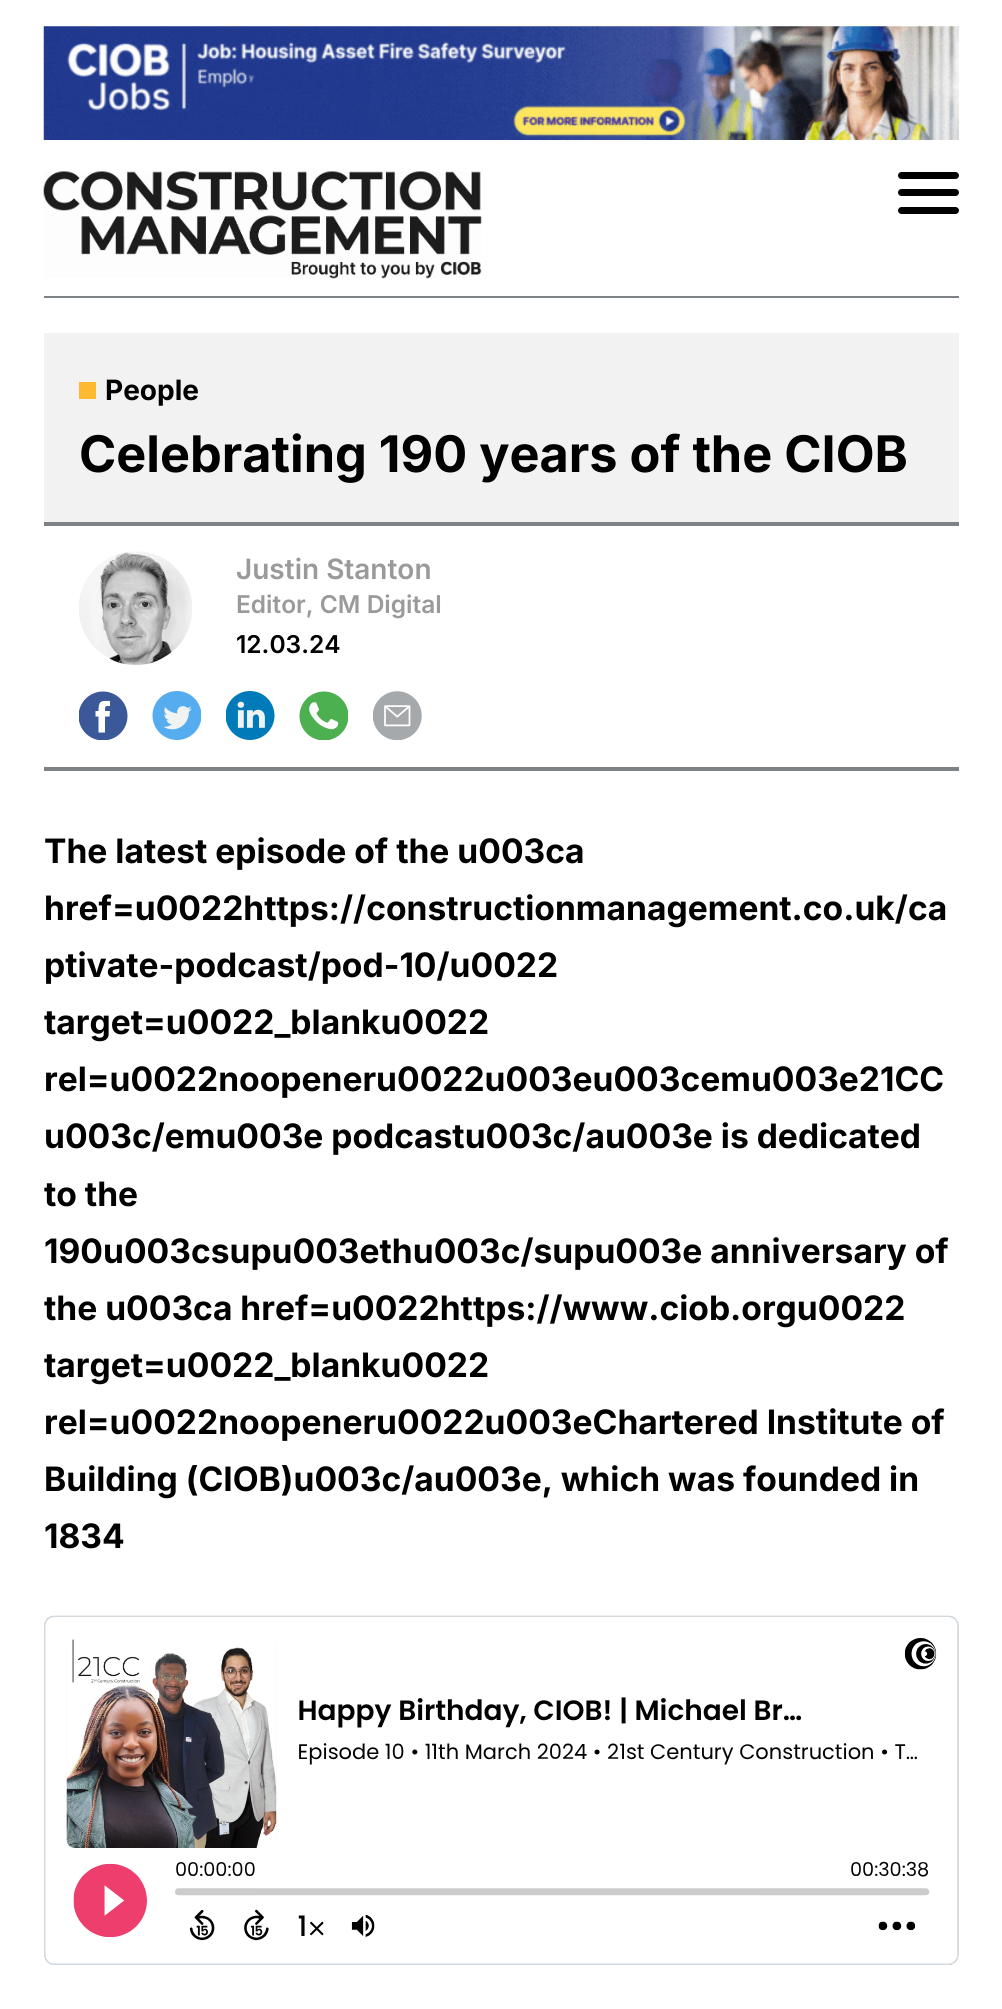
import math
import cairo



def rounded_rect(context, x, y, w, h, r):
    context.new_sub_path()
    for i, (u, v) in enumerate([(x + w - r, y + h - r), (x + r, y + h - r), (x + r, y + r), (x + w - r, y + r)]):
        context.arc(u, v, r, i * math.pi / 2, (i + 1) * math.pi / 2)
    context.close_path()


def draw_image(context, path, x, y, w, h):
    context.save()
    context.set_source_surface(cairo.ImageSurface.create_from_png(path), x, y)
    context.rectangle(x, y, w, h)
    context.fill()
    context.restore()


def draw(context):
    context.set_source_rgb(1, 1, 1)
    context.paint()
    draw_image(context, "images/1.png", 43, 26, 916, 114)
    context.set_source_rgb(126 / 255, 129 / 255, 134 / 255)
    context.rectangle(44, 296, 915, 2)
    context.fill()
    draw_image(context, "images/2.png", 43, 171, 439, 108)
    context.set_source_rgb(1 / 255, 0, 0)
    rounded_rect(context, 898, 172, 61, 7, 3.5)
    context.fill()
    rounded_rect(context, 898, 189, 61, 7, 3.5)
    context.fill()
    rounded_rect(context, 898, 207, 61, 7, 3.5)
    context.fill()
    context.set_source_rgb(242 / 255, 242 / 255, 242 / 255)
    context.rectangle(44, 333, 915, 189)
    context.fill()
    context.set_source_rgb(126 / 255, 129 / 255, 134 / 255)
    context.rectangle(44, 522, 915, 4)
    context.fill()
    context.set_source_rgb(253 / 255, 185 / 255, 48 / 255)
    context.rectangle(79, 382, 17, 17)
    context.fill()
    context.set_source_rgb(126 / 255, 129 / 255, 134 / 255)
    context.rectangle(44, 767, 915, 4)
    context.fill()
    draw_image(context, "images/3.png", 79, 551, 113, 114)
    context.save()
    context.rectangle(79, 691, 49, 49)
    context.clip()
    context.set_source_rgb(59 / 255, 89 / 255, 152 / 255)
    context.arc(103, 716, 24.5, 0, 2 * math.pi)
    context.fill()
    context.restore()
    context.set_source_rgb(1, 1, 1)
    context.new_path()
    context.move_to(109.5, 716.5)
    context.line_to(105, 716.5)
    context.line_to(105, 732.5)
    context.line_to(98.5, 732.5)
    context.line_to(98.5, 716.5)
    context.line_to(95.5, 716.5)
    context.line_to(95.5, 711)
    context.line_to(98.5, 711)
    context.curve_to(98.5, 701, 100.5, 700.5, 110, 701)
    context.line_to(110, 706)
    context.curve_to(105, 706, 105, 705.5, 105, 711)
    context.line_to(110, 711)
    context.close_path()
    context.fill()
    draw_image(context, "images/4.png", 152, 691, 49, 49)
    draw_image(context, "images/5.png", 226, 691, 49, 49)
    draw_image(context, "images/6.png", 299, 691, 49, 49)
    draw_image(context, "images/7.png", 373, 691, 49, 49)
    draw_image(context, "images/8.png", 44, 1615, 915, 350)
    context.select_font_face("Inter", cairo.FontSlant.NORMAL, cairo.FontWeight.BOLD)
    context.set_font_size(28)
    context.set_source_rgb(1 / 255, 0, 0)
    context.move_to(105, 400)
    context.show_text("People")
    context.set_font_size(50.4)
    context.move_to(79, 472)
    context.show_text("Celebrating 190 years of the CIOB")
    context.select_font_face("Inter SemiBold")
    context.set_font_size(28)
    context.set_source_rgb(154 / 255, 154 / 255, 154 / 255)
    context.move_to(236, 579)
    context.show_text("Justin Stanton")
    context.set_font_size(24.5)
    context.move_to(236, 613)
    context.show_text("Editor, CM Digital")
    context.set_source_rgb(1 / 255, 0, 0)
    context.move_to(236, 653)
    context.show_text("12.03.24")
    context.select_font_face("Inter", cairo.FontSlant.NORMAL, cairo.FontWeight.BOLD)
    context.set_font_size(33.6)
    context.move_to(44, 863)
    context.show_text("The latest episode of the u003ca")
    context.move_to(44, 920)
    context.show_text("href=u0022https://constructionmanagement.co.uk/ca")
    context.move_to(44, 977)
    context.show_text("ptivate-podcast/pod-10/u0022")
    context.move_to(44, 1034)
    context.show_text("target=u0022_blanku0022")
    context.move_to(44, 1091)
    context.show_text("rel=u0022noopeneru0022u003eu003cemu003e21CC")
    context.move_to(44, 1148)
    context.show_text("u003c/emu003e podcastu003c/au003e is dedicated")
    context.move_to(44, 1206)
    context.show_text("to the")
    context.move_to(44, 1263)
    context.show_text("190u003csupu003ethu003c/supu003e anniversary of")
    context.move_to(44, 1320)
    context.show_text("the u003ca href=u0022https://www.ciob.orgu0022")
    context.move_to(44, 1377)
    context.show_text("target=u0022_blanku0022")
    context.move_to(44, 1434)
    context.show_text("rel=u0022noopeneru0022u003eChartered Institute of")
    context.move_to(44, 1491)
    context.show_text("Building (CIOB)u003c/au003e, which was founded in")
    context.move_to(44, 1548)
    context.show_text("1834")


surface = cairo.ImageSurface(cairo.Format.RGB24, 1002, 2009)
context = cairo.Context(surface)
options = cairo.FontOptions()
options.set_hint_metrics(cairo.HintMetrics.OFF)
options.set_hint_style(cairo.HintStyle.NONE)
context.set_font_options(options)
context.set_miter_limit(4)
draw(context)
surface.write_to_png("out.png")
